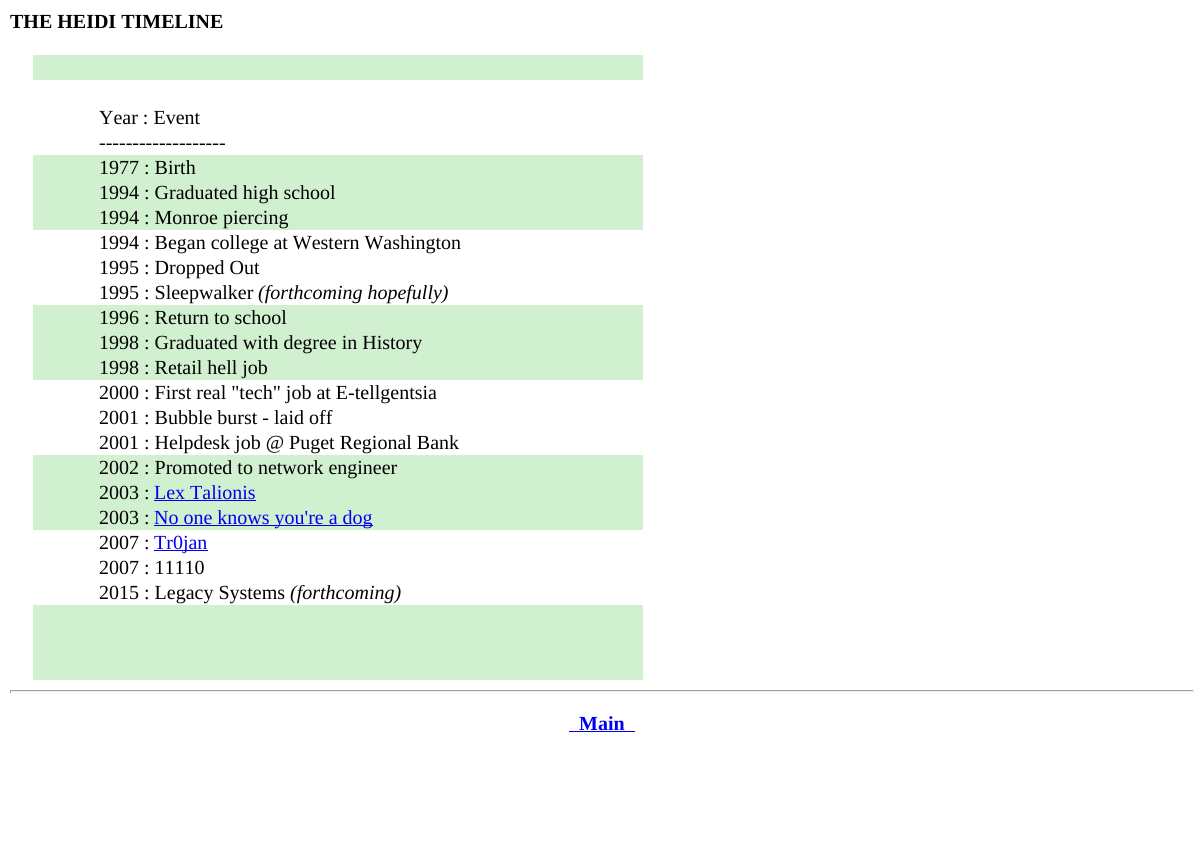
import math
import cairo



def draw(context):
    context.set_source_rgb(1, 1, 1)
    context.paint()
    context.set_source_rgb(208 / 255, 240 / 255, 208 / 255)
    context.rectangle(33, 55, 610, 25)
    context.fill()
    context.rectangle(33, 155, 610, 75)
    context.fill()
    context.rectangle(33, 305, 610, 75)
    context.fill()
    context.rectangle(33, 455, 610, 75)
    context.fill()
    context.set_source_rgb(0, 0, 238 / 255)
    context.rectangle(154, 500, 102, 1)
    context.fill()
    context.rectangle(154, 525, 219, 1)
    context.fill()
    context.rectangle(154, 550, 54, 1)
    context.fill()
    context.set_source_rgb(208 / 255, 240 / 255, 208 / 255)
    context.rectangle(33, 605, 610, 75)
    context.fill()
    context.set_source_rgb(159 / 255, 159 / 255, 159 / 255)
    context.rectangle(10, 690, 1184, 1)
    context.fill()
    context.set_source_rgb(238 / 255, 238 / 255, 238 / 255)
    context.rectangle(1193, 690, 1, 3)
    context.fill()
    context.rectangle(10, 691, 1184, 1)
    context.fill()
    context.set_source_rgb(159 / 255, 159 / 255, 159 / 255)
    context.rectangle(10, 690, 1, 3)
    context.fill()
    context.set_source_rgb(0, 0, 238 / 255)
    context.rectangle(569, 731, 66, 1)
    context.fill()
    context.select_font_face("Liberation Serif", cairo.FontSlant.NORMAL, cairo.FontWeight.BOLD)
    context.set_font_size(20)
    context.set_source_rgb(0, 0, 0)
    context.move_to(10, 28)
    context.show_text("THE HEIDI TIMELINE")
    context.select_font_face("Liberation Serif")
    context.move_to(99, 124)
    context.show_text("Year : Event")
    context.move_to(99, 149)
    context.show_text("-------------------")
    context.move_to(99, 174)
    context.show_text("1977 : Birth")
    context.move_to(99, 199)
    context.show_text("1994 : Graduated high school")
    context.move_to(99, 224)
    context.show_text("1994 : Monroe piercing")
    context.move_to(99, 249)
    context.show_text("1994 : Began college at Western Washington")
    context.move_to(99, 274)
    context.show_text("1995 : Dropped Out")
    context.move_to(99, 299)
    context.show_text("1995 : Sleepwalker")
    context.select_font_face("Liberation Serif", cairo.FontSlant.ITALIC)
    context.move_to(258, 299)
    context.show_text("(forthcoming hopefully)")
    context.select_font_face("Liberation Serif")
    context.move_to(99, 324)
    context.show_text("1996 : Return to school")
    context.move_to(99, 349)
    context.show_text("1998 : Graduated with degree in History")
    context.move_to(99, 374)
    context.show_text("1998 : Retail hell job")
    context.move_to(99, 399)
    context.show_text("2000 : First real \"tech\" job at E-tellgentsia")
    context.move_to(99, 424)
    context.show_text("2001 : Bubble burst - laid off")
    context.move_to(99, 449)
    context.show_text("2001 : Helpdesk job @ Puget Regional Bank")
    context.move_to(99, 474)
    context.show_text("2002 : Promoted to network engineer")
    context.move_to(99, 499)
    context.show_text("2003 :")
    context.set_source_rgb(0, 0, 238 / 255)
    context.move_to(154, 499)
    context.show_text("Lex Talionis")
    context.set_source_rgb(0, 0, 0)
    context.move_to(99, 524)
    context.show_text("2003 :")
    context.set_source_rgb(0, 0, 238 / 255)
    context.move_to(154, 524)
    context.show_text("No one knows you're a dog")
    context.set_source_rgb(0, 0, 0)
    context.move_to(99, 549)
    context.show_text("2007 :")
    context.set_source_rgb(0, 0, 238 / 255)
    context.move_to(154, 549)
    context.show_text("Tr0jan")
    context.set_source_rgb(0, 0, 0)
    context.move_to(99, 574)
    context.show_text("2007 : 11110")
    context.move_to(99, 599)
    context.show_text("2015 : Legacy Systems")
    context.select_font_face("Liberation Serif", cairo.FontSlant.ITALIC)
    context.move_to(290, 599)
    context.show_text("(forthcoming)")
    context.select_font_face("Liberation Serif", cairo.FontSlant.NORMAL, cairo.FontWeight.BOLD)
    context.set_source_rgb(0, 0, 238 / 255)
    context.move_to(579, 730)
    context.show_text("Main")


surface = cairo.ImageSurface(cairo.Format.RGB24, 1203, 843)
context = cairo.Context(surface)
options = cairo.FontOptions()
options.set_hint_metrics(cairo.HintMetrics.OFF)
options.set_hint_style(cairo.HintStyle.NONE)
context.set_font_options(options)
context.set_miter_limit(4)
draw(context)
surface.write_to_png("out.png")
